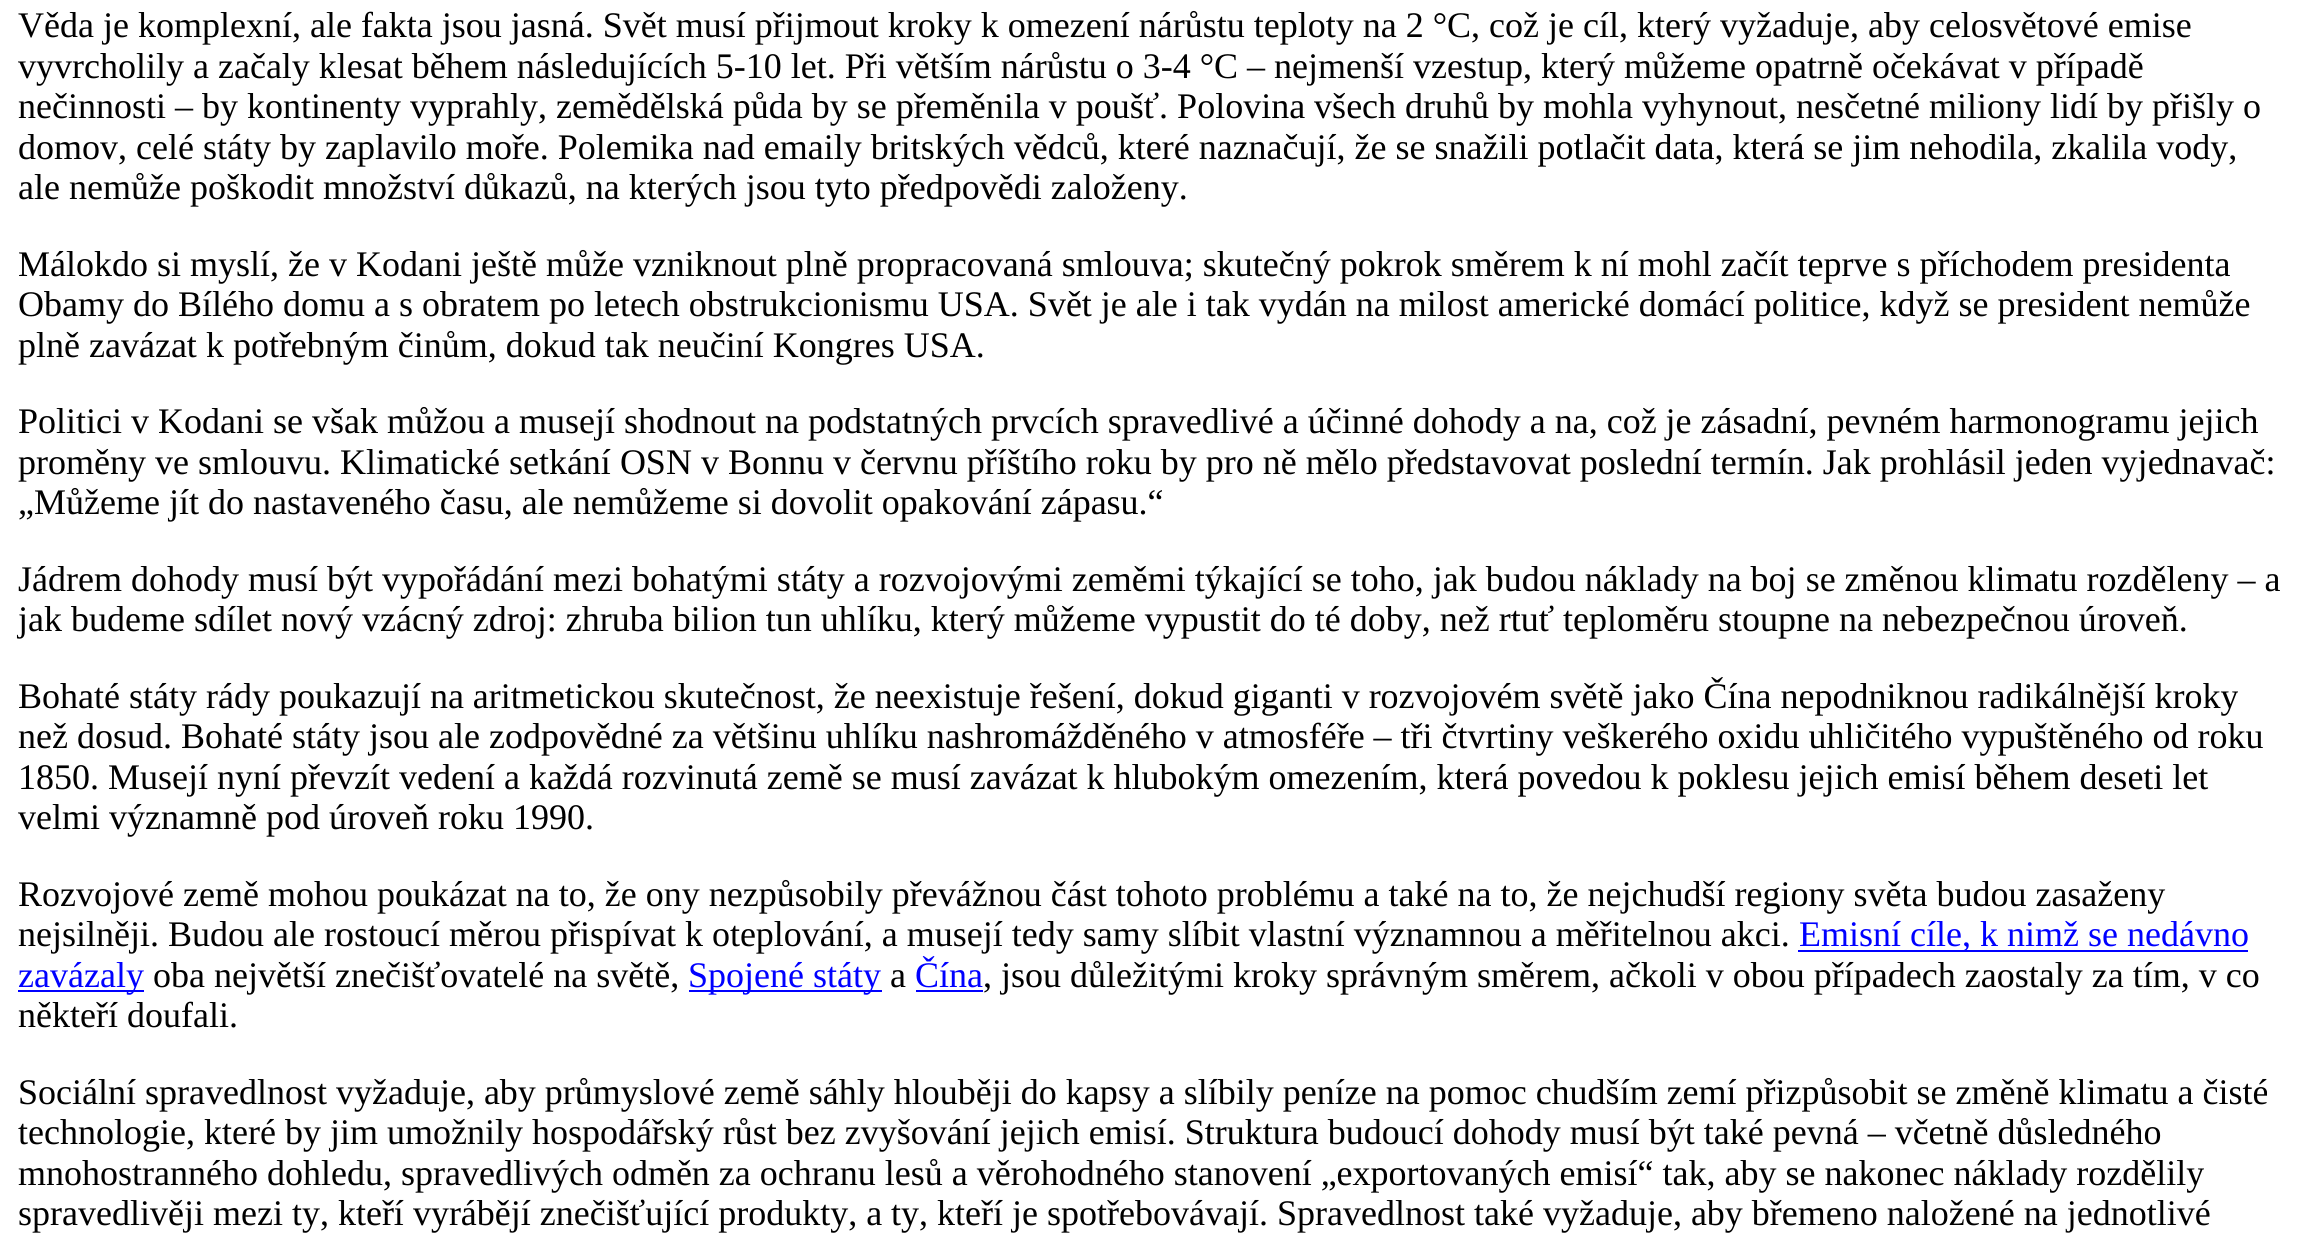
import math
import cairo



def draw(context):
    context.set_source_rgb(1, 1, 1)
    context.paint()
    context.set_source_rgb(0, 0, 1)
    context.rectangle(1798, 950, 450, 2)
    context.fill()
    context.rectangle(18, 990, 126, 2)
    context.fill()
    context.rectangle(689, 990, 193, 2)
    context.fill()
    context.rectangle(916, 990, 67, 2)
    context.fill()
    context.select_font_face("Liberation Serif")
    context.set_font_size(36)
    context.set_source_rgb(0, 0, 0)
    context.move_to(18, 37)
    context.show_text("Věda je komplexní, ale fakta jsou jasná. Svět musí přijmout kroky k omezení nárůstu teploty na 2 °C, což je cíl, který vyžaduje, aby celosvětové emise")
    context.move_to(18, 78)
    context.show_text("vyvrcholily a začaly klesat během následujících 5-10 let. Při větším nárůstu o 3-4 °C – nejmenší vzestup, který můžeme opatrně očekávat v případě")
    context.move_to(18, 118)
    context.show_text("nečinnosti – by kontinenty vyprahly, zemědělská půda by se přeměnila v poušť. Polovina všech druhů by mohla vyhynout, nesčetné miliony lidí by přišly o")
    context.move_to(18, 159)
    context.show_text("domov, celé státy by zaplavilo moře. Polemika nad emaily britských vědců, které naznačují, že se snažili potlačit data, která se jim nehodila, zkalila vody,")
    context.move_to(18, 199)
    context.show_text("ale nemůže poškodit množství důkazů, na kterých jsou tyto předpovědi založeny.")
    context.move_to(18, 276)
    context.show_text("Málokdo si myslí, že v Kodani ještě může vzniknout plně propracovaná smlouva; skutečný pokrok směrem k ní mohl začít teprve s příchodem presidenta")
    context.move_to(18, 316)
    context.show_text("Obamy do Bílého domu a s obratem po letech obstrukcionismu USA. Svět je ale i tak vydán na milost americké domácí politice, když se president nemůže")
    context.move_to(18, 357)
    context.show_text("plně zavázat k potřebným činům, dokud tak neučiní Kongres USA.")
    context.move_to(18, 433)
    context.show_text("Politici v Kodani se však můžou a musejí shodnout na podstatných prvcích spravedlivé a účinné dohody a na, což je zásadní, pevném harmonogramu jejich")
    context.move_to(18, 474)
    context.show_text("proměny ve smlouvu. Klimatické setkání OSN v Bonnu v červnu příštího roku by pro ně mělo představovat poslední termín. Jak prohlásil jeden vyjednavač:")
    context.move_to(18, 514)
    context.show_text("„Můžeme jít do nastaveného času, ale nemůžeme si dovolit opakování zápasu.“")
    context.move_to(18, 591)
    context.show_text("Jádrem dohody musí být vypořádání mezi bohatými státy a rozvojovými zeměmi týkající se toho, jak budou náklady na boj se změnou klimatu rozděleny – a")
    context.move_to(18, 631)
    context.show_text("jak budeme sdílet nový vzácný zdroj: zhruba bilion tun uhlíku, který můžeme vypustit do té doby, než rtuť teploměru stoupne na nebezpečnou úroveň.")
    context.move_to(18, 708)
    context.show_text("Bohaté státy rády poukazují na aritmetickou skutečnost, že neexistuje řešení, dokud giganti v rozvojovém světě jako Čína nepodniknou radikálnější kroky")
    context.move_to(18, 748)
    context.show_text("než dosud. Bohaté státy jsou ale zodpovědné za většinu uhlíku nashromážděného v atmosféře – tři čtvrtiny veškerého oxidu uhličitého vypuštěného od roku")
    context.move_to(18, 789)
    context.show_text("1850. Musejí nyní převzít vedení a každá rozvinutá země se musí zavázat k hlubokým omezením, která povedou k poklesu jejich emisí během deseti let")
    context.move_to(18, 829)
    context.show_text("velmi významně pod úroveň roku 1990.")
    context.move_to(18, 906)
    context.show_text("Rozvojové země mohou poukázat na to, že ony nezpůsobily převážnou část tohoto problému a také na to, že nejchudší regiony světa budou zasaženy")
    context.move_to(18, 946)
    context.show_text("nejsilněji. Budou ale rostoucí měrou přispívat k oteplování, a musejí tedy samy slíbit vlastní významnou a měřitelnou akci.")
    context.set_source_rgb(0, 0, 1)
    context.move_to(1799, 946)
    context.show_text("Emisní cíle, k nimž se nedávno")
    context.move_to(18, 987)
    context.show_text("zavázaly")
    context.set_source_rgb(0, 0, 0)
    context.move_to(153, 987)
    context.show_text("oba největší znečišťovatelé na světě,")
    context.set_source_rgb(0, 0, 1)
    context.move_to(688, 987)
    context.show_text("Spojené státy")
    context.set_source_rgb(0, 0, 0)
    context.move_to(890, 987)
    context.show_text("a")
    context.set_source_rgb(0, 0, 1)
    context.move_to(915, 987)
    context.show_text("Čína")
    context.set_source_rgb(0, 0, 0)
    context.move_to(983, 987)
    context.show_text(", jsou důležitými kroky správným směrem, ačkoli v obou případech zaostaly za tím, v co")
    context.move_to(18, 1027)
    context.show_text("někteří doufali.")
    context.move_to(18, 1104)
    context.show_text("Sociální spravedlnost vyžaduje, aby průmyslové země sáhly hlouběji do kapsy a slíbily peníze na pomoc chudším zemí přizpůsobit se změně klimatu a čisté")
    context.move_to(18, 1144)
    context.show_text("technologie, které by jim umožnily hospodářský růst bez zvyšování jejich emisí. Struktura budoucí dohody musí být také pevná – včetně důsledného")
    context.move_to(18, 1185)
    context.show_text("mnohostranného dohledu, spravedlivých odměn za ochranu lesů a věrohodného stanovení „exportovaných emisí“ tak, aby se nakonec náklady rozdělily")
    context.move_to(18, 1225)
    context.show_text("spravedlivěji mezi ty, kteří vyrábějí znečišťující produkty, a ty, kteří je spotřebovávají. Spravedlnost také vyžaduje, aby břemeno naložené na jednotlivé")


surface = cairo.ImageSurface(cairo.Format.RGB24, 2300, 1248)
context = cairo.Context(surface)
options = cairo.FontOptions()
options.set_hint_metrics(cairo.HintMetrics.OFF)
options.set_hint_style(cairo.HintStyle.NONE)
context.set_font_options(options)
context.set_miter_limit(4)
draw(context)
surface.write_to_png("out.png")
